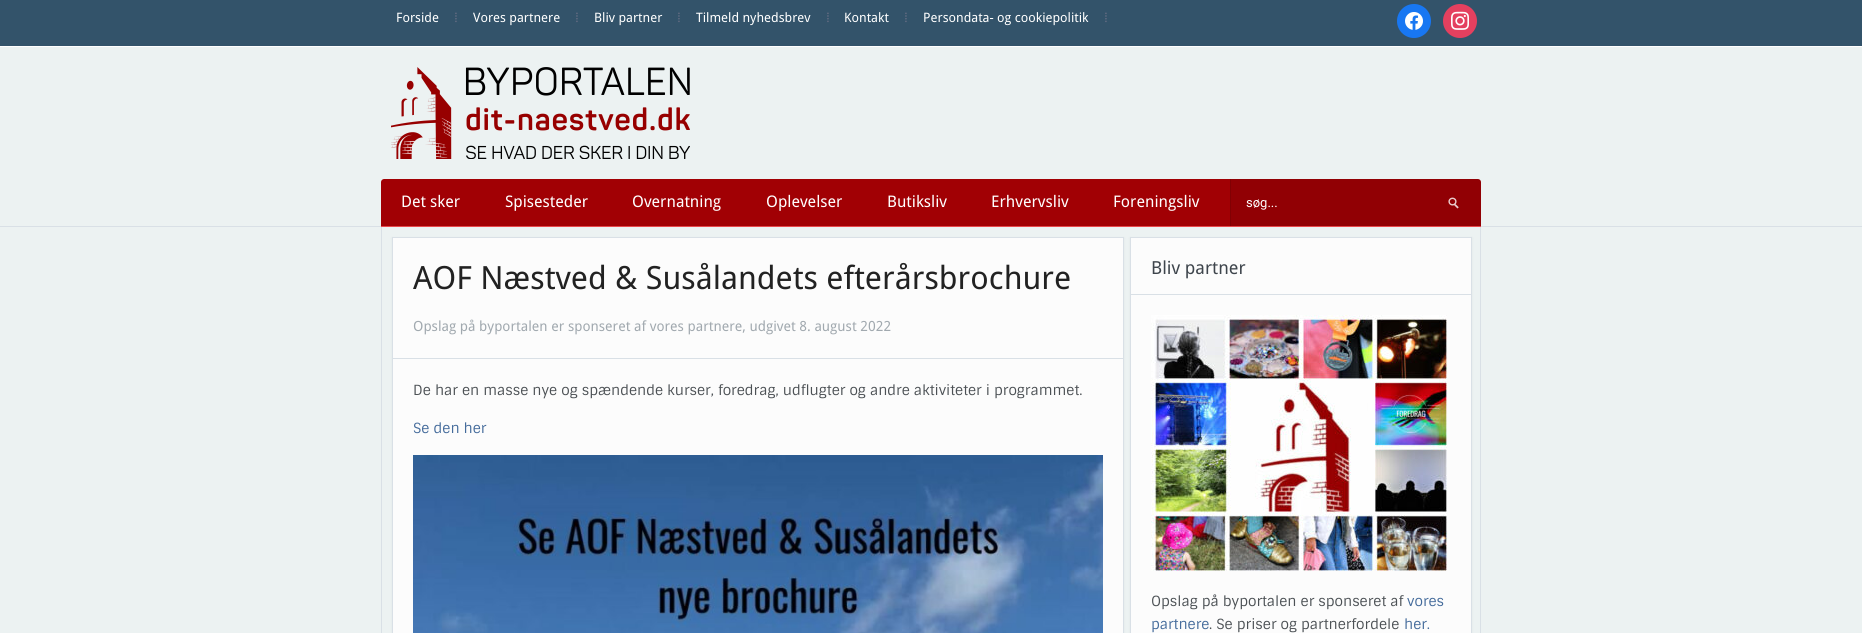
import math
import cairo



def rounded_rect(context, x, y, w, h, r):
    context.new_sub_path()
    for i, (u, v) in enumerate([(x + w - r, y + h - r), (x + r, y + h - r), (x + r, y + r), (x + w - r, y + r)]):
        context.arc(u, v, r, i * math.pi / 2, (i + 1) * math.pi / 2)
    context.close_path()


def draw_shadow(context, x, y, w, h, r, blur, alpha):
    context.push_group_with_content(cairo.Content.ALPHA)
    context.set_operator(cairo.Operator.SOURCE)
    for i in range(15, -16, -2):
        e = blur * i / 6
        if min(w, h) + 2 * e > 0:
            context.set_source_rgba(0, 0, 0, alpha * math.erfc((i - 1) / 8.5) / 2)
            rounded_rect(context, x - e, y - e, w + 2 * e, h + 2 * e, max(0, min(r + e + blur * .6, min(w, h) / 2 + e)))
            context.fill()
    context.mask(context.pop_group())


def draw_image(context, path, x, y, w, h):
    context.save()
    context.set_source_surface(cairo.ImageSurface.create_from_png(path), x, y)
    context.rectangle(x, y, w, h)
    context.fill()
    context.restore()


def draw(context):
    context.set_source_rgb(236 / 255, 242 / 255, 242 / 255)
    context.paint()
    context.set_source_rgb(217 / 255, 224 / 255, 230 / 255)
    context.rectangle(0, 226, 1862, 1)
    context.fill()
    context.set_source_rgb(51 / 255, 83 / 255, 106 / 255)
    context.rectangle(0, 0, 1862, 46)
    context.fill()
    context.set_source_rgb(1, 1, 1)
    context.rectangle(0, 46, 1862, 1)
    context.fill()
    context.set_source_rgb(24 / 255, 119 / 255, 242 / 255)
    context.arc(1414, 21, 17, 0, 2 * math.pi)
    context.fill()
    draw_image(context, "images/1.png", 1405, 12, 18, 18)
    context.set_source_rgb(228 / 255, 64 / 255, 95 / 255)
    context.arc(1460, 21, 17, 0, 2 * math.pi)
    context.fill()
    draw_image(context, "images/2.png", 1451, 11, 18, 19)
    draw_image(context, "images/3.png", 391, 67, 299, 92)
    context.set_source_rgb(161 / 255, 0, 4 / 255)
    context.new_path()
    context.move_to(384, 179)
    context.line_to(1478, 179)
    context.curve_to(1479.5, 179, 1481, 180.5, 1481, 182)
    context.line_to(1481, 227)
    context.line_to(381, 227)
    context.line_to(381, 182)
    context.curve_to(381, 180.5, 382.5, 179, 384, 179)
    context.close_path()
    context.fill()
    context.set_source_rgb(233 / 255, 72 / 255, 76 / 255)
    context.rectangle(381, 226, 1100, 1)
    context.fill()
    context.set_source_rgb(129 / 255, 0, 3 / 255)
    context.rectangle(1230, 179, 1, 47)
    context.fill()
    context.set_source_rgba(0, 0, 0, 0.1)
    context.new_path()
    context.move_to(1231, 179)
    context.line_to(1478, 179)
    context.curve_to(1479.5, 179, 1481, 180.5, 1481, 182)
    context.line_to(1481, 226)
    context.line_to(1231, 226)
    context.close_path()
    context.fill()
    draw_image(context, "images/4.png", 1448, 197, 11, 12)
    context.set_source_rgb(217 / 255, 224 / 255, 230 / 255)
    context.set_fill_rule(cairo.FillRule.EVEN_ODD)
    context.new_path()
    context.move_to(381, 227)
    context.line_to(1481, 227)
    context.line_to(1481, 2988)
    context.curve_to(1481, 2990, 1480, 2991, 1478, 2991)
    context.line_to(384, 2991)
    context.curve_to(382, 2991, 381, 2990, 381, 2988)
    context.close_path()
    context.move_to(382, 227)
    context.line_to(1480, 227)
    context.line_to(1480, 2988)
    context.curve_to(1480, 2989, 1479, 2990, 1478, 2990)
    context.line_to(384, 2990)
    context.curve_to(383, 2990, 382, 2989, 382, 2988)
    context.close_path()
    context.fill()
    context.set_source_rgb(74 / 255, 95 / 255, 116 / 255)
    draw_shadow(context, 392, 238, 732, 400, 0, 1.5, 0.08)
    context.set_source_rgb(252 / 255, 252 / 255, 252 / 255)
    context.rectangle(392.5, 237.5, 731, 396)
    context.fill_preserve()
    context.set_source_rgb(217 / 255, 224 / 255, 230 / 255)
    context.set_line_width(1)
    context.stroke()
    context.rectangle(393, 358, 730, 1)
    context.fill()
    draw_image(context, "images/5.png", 413, 455, 690, 178)
    context.set_source_rgb(74 / 255, 95 / 255, 116 / 255)
    draw_shadow(context, 1130, 238, 342, 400, 0, 1.5, 0.08)
    context.set_source_rgb(252 / 255, 252 / 255, 252 / 255)
    context.rectangle(1130.5, 237.5, 341, 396)
    context.fill_preserve()
    context.set_source_rgb(217 / 255, 224 / 255, 230 / 255)
    context.stroke()
    context.rectangle(1131, 294, 340, 1)
    context.fill()
    draw_image(context, "images/6.png", 1151, 315, 296, 256)
    context.select_font_face("Droid Sans")
    context.set_font_size(13)
    context.set_source_rgb(1, 1, 1)
    context.move_to(396, 22)
    context.show_text("Forside")
    context.select_font_face("Liberation Serif")
    context.set_font_size(14)
    context.set_source_rgb(102 / 255, 109 / 255, 131 / 255)
    context.move_to(454, 22)
    context.show_text("⁞")
    context.select_font_face("Droid Sans")
    context.set_font_size(13)
    context.set_source_rgb(1, 1, 1)
    context.move_to(473, 22)
    context.show_text("Vores partnere")
    context.select_font_face("Liberation Serif")
    context.set_font_size(14)
    context.set_source_rgb(102 / 255, 109 / 255, 131 / 255)
    context.move_to(575, 22)
    context.show_text("⁞")
    context.select_font_face("Droid Sans")
    context.set_font_size(13)
    context.set_source_rgb(1, 1, 1)
    context.move_to(594, 22)
    context.show_text("Bliv partner")
    context.select_font_face("Liberation Serif")
    context.set_font_size(14)
    context.set_source_rgb(102 / 255, 109 / 255, 131 / 255)
    context.move_to(677, 22)
    context.show_text("⁞")
    context.select_font_face("Droid Sans")
    context.set_font_size(13)
    context.set_source_rgb(1, 1, 1)
    context.move_to(696, 22)
    context.show_text("Tilmeld nyhedsbrev")
    context.select_font_face("Liberation Serif")
    context.set_font_size(14)
    context.set_source_rgb(102 / 255, 109 / 255, 131 / 255)
    context.move_to(826, 22)
    context.show_text("⁞")
    context.select_font_face("Droid Sans")
    context.set_font_size(13)
    context.set_source_rgb(1, 1, 1)
    context.move_to(844, 22)
    context.show_text("Kontakt")
    context.select_font_face("Liberation Serif")
    context.set_font_size(14)
    context.set_source_rgb(102 / 255, 109 / 255, 131 / 255)
    context.move_to(904, 22)
    context.show_text("⁞")
    context.select_font_face("Droid Sans")
    context.set_font_size(13)
    context.set_source_rgb(1, 1, 1)
    context.move_to(923, 22)
    context.show_text("Persondata- og cookiepolitik")
    context.select_font_face("Liberation Serif")
    context.set_font_size(14)
    context.set_source_rgb(102 / 255, 109 / 255, 131 / 255)
    context.move_to(1104, 22)
    context.show_text("⁞")
    context.select_font_face("Droid Sans")
    context.set_font_size(16)
    context.set_source_rgb(1, 1, 1)
    context.move_to(401, 207)
    context.show_text("Det sker")
    context.move_to(505, 207)
    context.show_text("Spisesteder")
    context.move_to(632, 207)
    context.show_text("Overnatning")
    context.move_to(766, 207)
    context.show_text("Oplevelser")
    context.move_to(887, 207)
    context.show_text("Butiksliv")
    context.move_to(991, 207)
    context.show_text("Erhvervsliv")
    context.move_to(1113, 207)
    context.show_text("Foreningsliv")
    context.select_font_face("Roboto")
    context.set_font_size(13)
    context.move_to(1246, 207)
    context.show_text("søg...")
    context.select_font_face("Droid Sans")
    context.set_font_size(32)
    context.set_source_rgb(34 / 255, 34 / 255, 34 / 255)
    context.move_to(413, 289)
    context.show_text("AOF Næstved & Susålandets efterårsbrochure")
    context.set_font_size(14)
    context.set_source_rgb(161 / 255, 169 / 255, 175 / 255)
    context.move_to(413, 331)
    context.show_text("Opslag på byportalen er sponseret af vores partnere, udgivet 8. august 2022")
    context.select_font_face("Sintony")
    context.set_source_rgb(76 / 255, 81 / 255, 85 / 255)
    context.move_to(413, 395)
    context.show_text("De har en masse nye og spændende kurser, foredrag, udflugter og andre aktiviteter i programmet.")
    context.set_source_rgb(68 / 255, 107 / 255, 155 / 255)
    context.move_to(413, 433)
    context.show_text("Se den her")
    context.select_font_face("Droid Sans")
    context.set_font_size(18)
    context.set_source_rgb(62 / 255, 69 / 255, 76 / 255)
    context.move_to(1151, 274)
    context.show_text("Bliv partner")
    context.select_font_face("Sintony")
    context.set_font_size(14)
    context.set_source_rgb(76 / 255, 81 / 255, 85 / 255)
    context.move_to(1151, 606)
    context.show_text("Opslag på byportalen er sponseret af")
    context.set_source_rgb(68 / 255, 107 / 255, 155 / 255)
    context.move_to(1407, 606)
    context.show_text("vores")
    context.move_to(1151, 629)
    context.show_text("partnere")
    context.set_source_rgb(76 / 255, 81 / 255, 85 / 255)
    context.move_to(1209, 629)
    context.show_text(". Se priser og partnerfordele")
    context.set_source_rgb(68 / 255, 107 / 255, 155 / 255)
    context.move_to(1404, 629)
    context.show_text("her.")


surface = cairo.ImageSurface(cairo.Format.RGB24, 1862, 633)
context = cairo.Context(surface)
options = cairo.FontOptions()
options.set_hint_metrics(cairo.HintMetrics.OFF)
options.set_hint_style(cairo.HintStyle.NONE)
context.set_font_options(options)
context.set_miter_limit(4)
draw(context)
surface.write_to_png("out.png")
